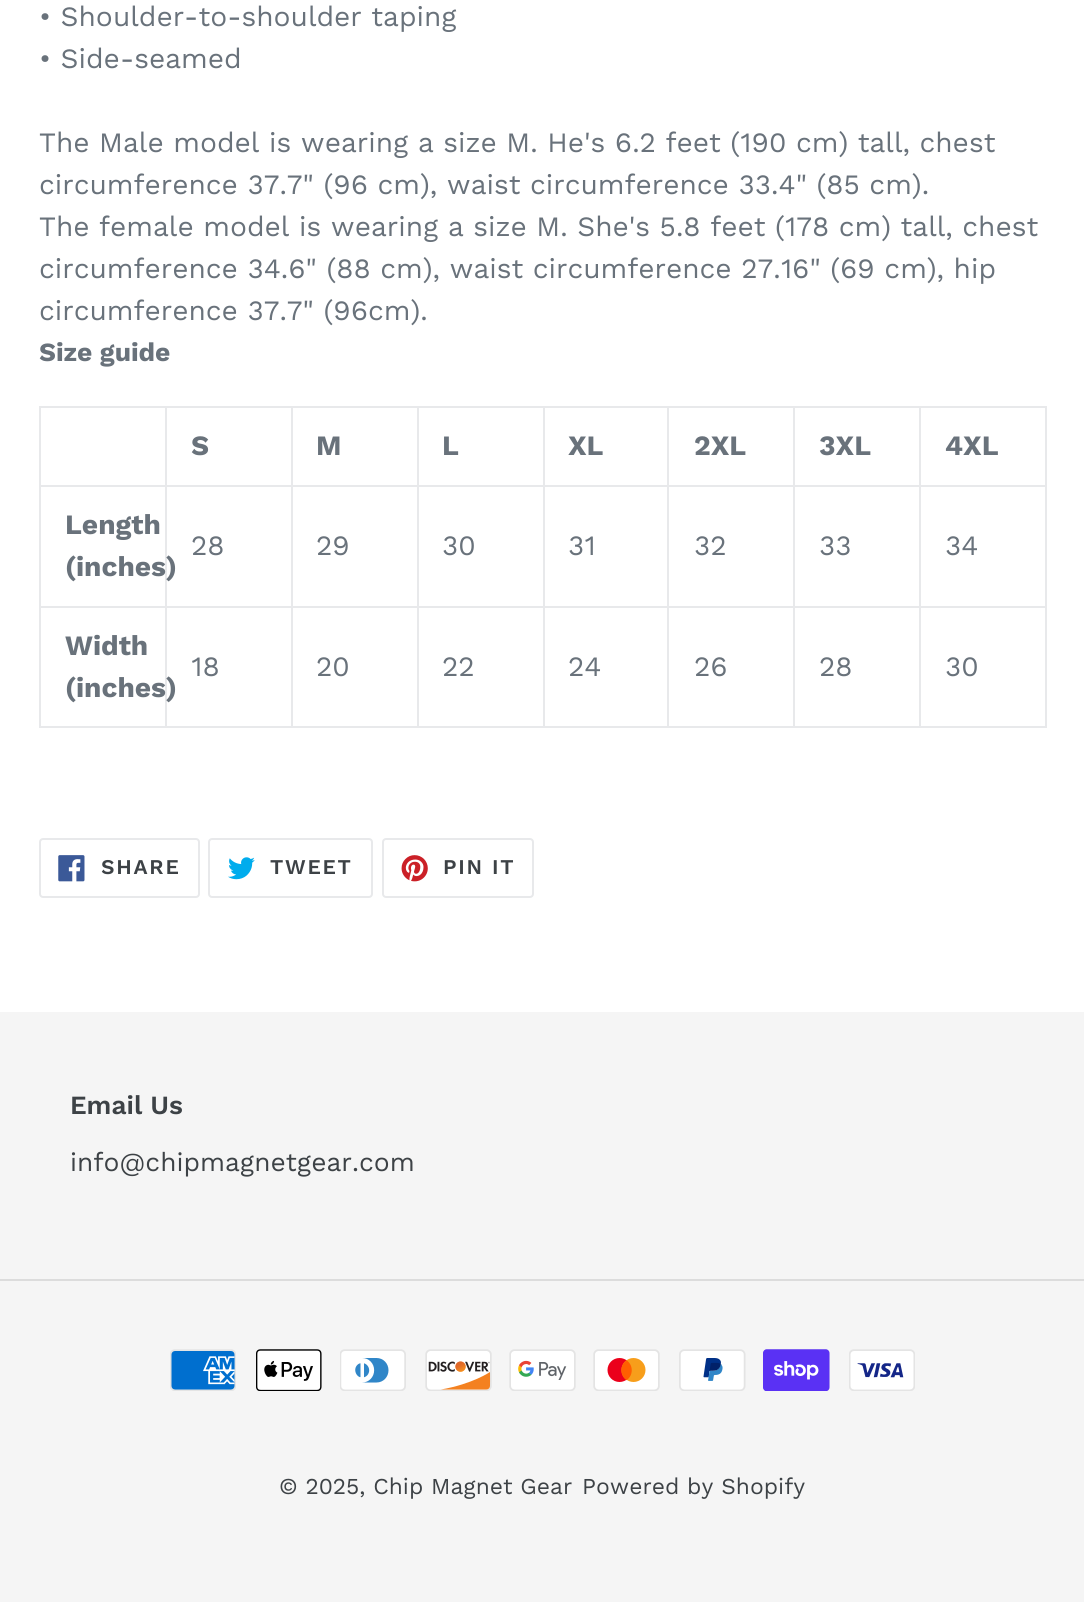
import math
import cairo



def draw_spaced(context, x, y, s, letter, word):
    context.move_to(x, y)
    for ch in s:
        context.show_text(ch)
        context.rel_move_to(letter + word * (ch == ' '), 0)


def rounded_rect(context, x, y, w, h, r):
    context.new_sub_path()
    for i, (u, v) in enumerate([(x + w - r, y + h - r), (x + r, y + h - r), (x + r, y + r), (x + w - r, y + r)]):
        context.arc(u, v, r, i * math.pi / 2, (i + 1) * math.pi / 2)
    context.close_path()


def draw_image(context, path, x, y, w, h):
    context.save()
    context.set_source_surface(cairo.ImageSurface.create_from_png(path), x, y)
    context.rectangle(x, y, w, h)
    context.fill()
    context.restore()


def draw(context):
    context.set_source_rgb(1, 1, 1)
    context.paint()
    context.set_source_rgb(232 / 255, 233 / 255, 235 / 255)
    context.rectangle(919, 406, 128, 2)
    context.fill()
    context.rectangle(919, 485, 128, 2)
    context.fill()
    context.rectangle(919, 606, 128, 2)
    context.fill()
    context.rectangle(1045, 606, 2, 122)
    context.fill()
    context.rectangle(919, 726, 128, 2)
    context.fill()
    context.rectangle(919, 606, 2, 122)
    context.fill()
    context.rectangle(793, 606, 128, 2)
    context.fill()
    context.rectangle(919, 485, 2, 122)
    context.fill()
    context.rectangle(793, 485, 128, 2)
    context.fill()
    context.rectangle(919, 406, 2, 81)
    context.fill()
    context.rectangle(793, 406, 128, 2)
    context.fill()
    context.rectangle(793, 726, 128, 2)
    context.fill()
    context.rectangle(793, 606, 2, 122)
    context.fill()
    context.rectangle(667, 606, 128, 2)
    context.fill()
    context.rectangle(793, 485, 2, 122)
    context.fill()
    context.rectangle(667, 485, 128, 2)
    context.fill()
    context.rectangle(793, 406, 2, 81)
    context.fill()
    context.rectangle(667, 406, 128, 2)
    context.fill()
    context.rectangle(667, 726, 128, 2)
    context.fill()
    context.rectangle(667, 606, 2, 122)
    context.fill()
    context.rectangle(543, 606, 126, 2)
    context.fill()
    context.rectangle(667, 485, 2, 122)
    context.fill()
    context.rectangle(543, 485, 126, 2)
    context.fill()
    context.rectangle(667, 406, 2, 81)
    context.fill()
    context.rectangle(543, 406, 126, 2)
    context.fill()
    context.rectangle(543, 726, 126, 2)
    context.fill()
    context.rectangle(543, 606, 2, 122)
    context.fill()
    context.rectangle(417, 606, 127, 2)
    context.fill()
    context.rectangle(543, 485, 2, 122)
    context.fill()
    context.rectangle(417, 485, 127, 2)
    context.fill()
    context.rectangle(543, 406, 2, 81)
    context.fill()
    context.rectangle(417, 406, 127, 2)
    context.fill()
    context.rectangle(417, 726, 127, 2)
    context.fill()
    context.rectangle(417, 606, 2, 122)
    context.fill()
    context.rectangle(291, 606, 127, 2)
    context.fill()
    context.rectangle(417, 485, 2, 122)
    context.fill()
    context.rectangle(291, 485, 127, 2)
    context.fill()
    context.rectangle(417, 406, 2, 81)
    context.fill()
    context.rectangle(291, 406, 127, 2)
    context.fill()
    context.rectangle(291, 726, 127, 2)
    context.fill()
    context.rectangle(291, 606, 2, 122)
    context.fill()
    context.rectangle(165, 606, 127, 2)
    context.fill()
    context.rectangle(291, 485, 2, 122)
    context.fill()
    context.rectangle(165, 485, 127, 2)
    context.fill()
    context.rectangle(291, 406, 2, 81)
    context.fill()
    context.rectangle(165, 406, 127, 2)
    context.fill()
    context.rectangle(165, 726, 127, 2)
    context.fill()
    context.rectangle(165, 606, 2, 122)
    context.fill()
    context.rectangle(39, 606, 127, 2)
    context.fill()
    context.rectangle(165, 485, 2, 122)
    context.fill()
    context.rectangle(39, 485, 127, 2)
    context.fill()
    context.rectangle(165, 406, 2, 81)
    context.fill()
    context.rectangle(39, 406, 127, 2)
    context.fill()
    context.rectangle(39, 726, 127, 2)
    context.fill()
    context.rectangle(39, 606, 2, 122)
    context.fill()
    context.rectangle(39, 485, 2, 122)
    context.fill()
    context.rectangle(39, 406, 2, 81)
    context.fill()
    context.rectangle(1045, 485, 2, 122)
    context.fill()
    context.rectangle(1045, 406, 2, 81)
    context.fill()
    rounded_rect(context, 40, 839, 159, 58, 3)
    context.stroke()
    draw_image(context, "images/1.png", 58, 855, 27, 27)
    rounded_rect(context, 209, 839, 163, 58, 3)
    context.stroke()
    draw_image(context, "images/2.png", 228, 857, 27, 23)
    rounded_rect(context, 383, 839, 150, 58, 3)
    context.stroke()
    draw_image(context, "images/3.png", 401, 855, 27, 27)
    context.set_source_rgb(245 / 255, 245 / 255, 245 / 255)
    context.rectangle(0, 1012, 1084, 590)
    context.fill()
    context.set_source_rgb(220 / 255, 220 / 255, 220 / 255)
    context.rectangle(0, 1279, 1084, 2)
    context.fill()
    draw_image(context, "images/4.png", 170, 1349, 66, 42)
    draw_image(context, "images/5.png", 256, 1349, 66, 42)
    draw_image(context, "images/6.png", 340, 1349, 66, 42)
    draw_image(context, "images/7.png", 425, 1349, 67, 42)
    draw_image(context, "images/8.png", 509, 1349, 67, 42)
    draw_image(context, "images/9.png", 593, 1349, 67, 42)
    draw_image(context, "images/10.png", 679, 1349, 67, 42)
    draw_image(context, "images/11.png", 763, 1349, 67, 42)
    draw_image(context, "images/12.png", 849, 1349, 66, 42)
    context.select_font_face("Work Sans")
    context.set_font_size(28)
    context.set_source_rgb(105 / 255, 114 / 255, 123 / 255)
    context.move_to(39, 26)
    context.show_text("• Shoulder-to-shoulder taping")
    context.move_to(39, 68)
    context.show_text("• Side-seamed")
    context.move_to(39, 152)
    context.show_text("The Male model is wearing a size M. He's 6.2 feet (190 cm) tall, chest")
    context.move_to(39, 194)
    context.show_text("circumference 37.7\" (96 cm), waist circumference 33.4\" (85 cm).")
    context.move_to(39, 236)
    context.show_text("The female model is wearing a size M. She's 5.8 feet (178 cm) tall, chest")
    context.move_to(39, 278)
    context.show_text("circumference 34.6\" (88 cm), waist circumference 27.16\" (69 cm), hip")
    context.move_to(39, 320)
    context.show_text("circumference 37.7\" (96cm).")
    context.select_font_face("Work Sans", cairo.FontSlant.NORMAL, cairo.FontWeight.BOLD)
    context.set_font_size(26.25)
    context.move_to(39, 361)
    context.show_text("Size guide")
    context.set_font_size(28)
    context.move_to(191, 455)
    context.show_text("S")
    context.move_to(316, 455)
    context.show_text("M")
    context.move_to(442, 455)
    context.show_text("L")
    context.move_to(568, 455)
    context.show_text("XL")
    context.move_to(694, 455)
    context.show_text("2XL")
    context.move_to(819, 455)
    context.show_text("3XL")
    context.move_to(945, 455)
    context.show_text("4XL")
    context.move_to(65, 534)
    context.show_text("Length")
    context.move_to(65, 576)
    context.show_text("(inches)")
    context.select_font_face("Work Sans")
    context.move_to(191, 555)
    context.show_text("28")
    context.move_to(316, 555)
    context.show_text("29")
    context.move_to(442, 555)
    context.show_text("30")
    context.move_to(568, 555)
    context.show_text("31")
    context.move_to(694, 555)
    context.show_text("32")
    context.move_to(819, 555)
    context.show_text("33")
    context.move_to(945, 555)
    context.show_text("34")
    context.select_font_face("Work Sans", cairo.FontSlant.NORMAL, cairo.FontWeight.BOLD)
    context.move_to(65, 655)
    context.show_text("Width")
    context.move_to(65, 697)
    context.show_text("(inches)")
    context.select_font_face("Work Sans")
    context.move_to(191, 676)
    context.show_text("18")
    context.move_to(316, 676)
    context.show_text("20")
    context.move_to(442, 676)
    context.show_text("22")
    context.move_to(568, 676)
    context.show_text("24")
    context.move_to(694, 676)
    context.show_text("26")
    context.move_to(819, 676)
    context.show_text("28")
    context.move_to(945, 676)
    context.show_text("30")
    context.select_font_face("Work Sans SemiBold")
    context.set_font_size(21)
    context.set_source_rgb(61 / 255, 66 / 255, 70 / 255)
    draw_spaced(context, 101, 874, "SHARE", 1.75, 0)
    draw_spaced(context, 270, 874, "TWEET", 1.75, 0)
    draw_spaced(context, 443, 874, "PIN IT", 1.75, 0)
    context.set_font_size(26.25)
    context.move_to(70, 1114)
    context.show_text("Email Us")
    context.select_font_face("Work Sans")
    context.move_to(70, 1171)
    context.show_text("info@chipmagnetgear.com")
    context.set_font_size(22.75)
    context.move_to(279, 1494)
    context.show_text("© 2025, Chip Magnet Gear")
    context.move_to(582, 1494)
    context.show_text("Powered by Shopify")


surface = cairo.ImageSurface(cairo.Format.RGB24, 1084, 1602)
context = cairo.Context(surface)
options = cairo.FontOptions()
options.set_hint_metrics(cairo.HintMetrics.OFF)
options.set_hint_style(cairo.HintStyle.NONE)
context.set_font_options(options)
context.set_miter_limit(4)
draw(context)
surface.write_to_png("out.png")
